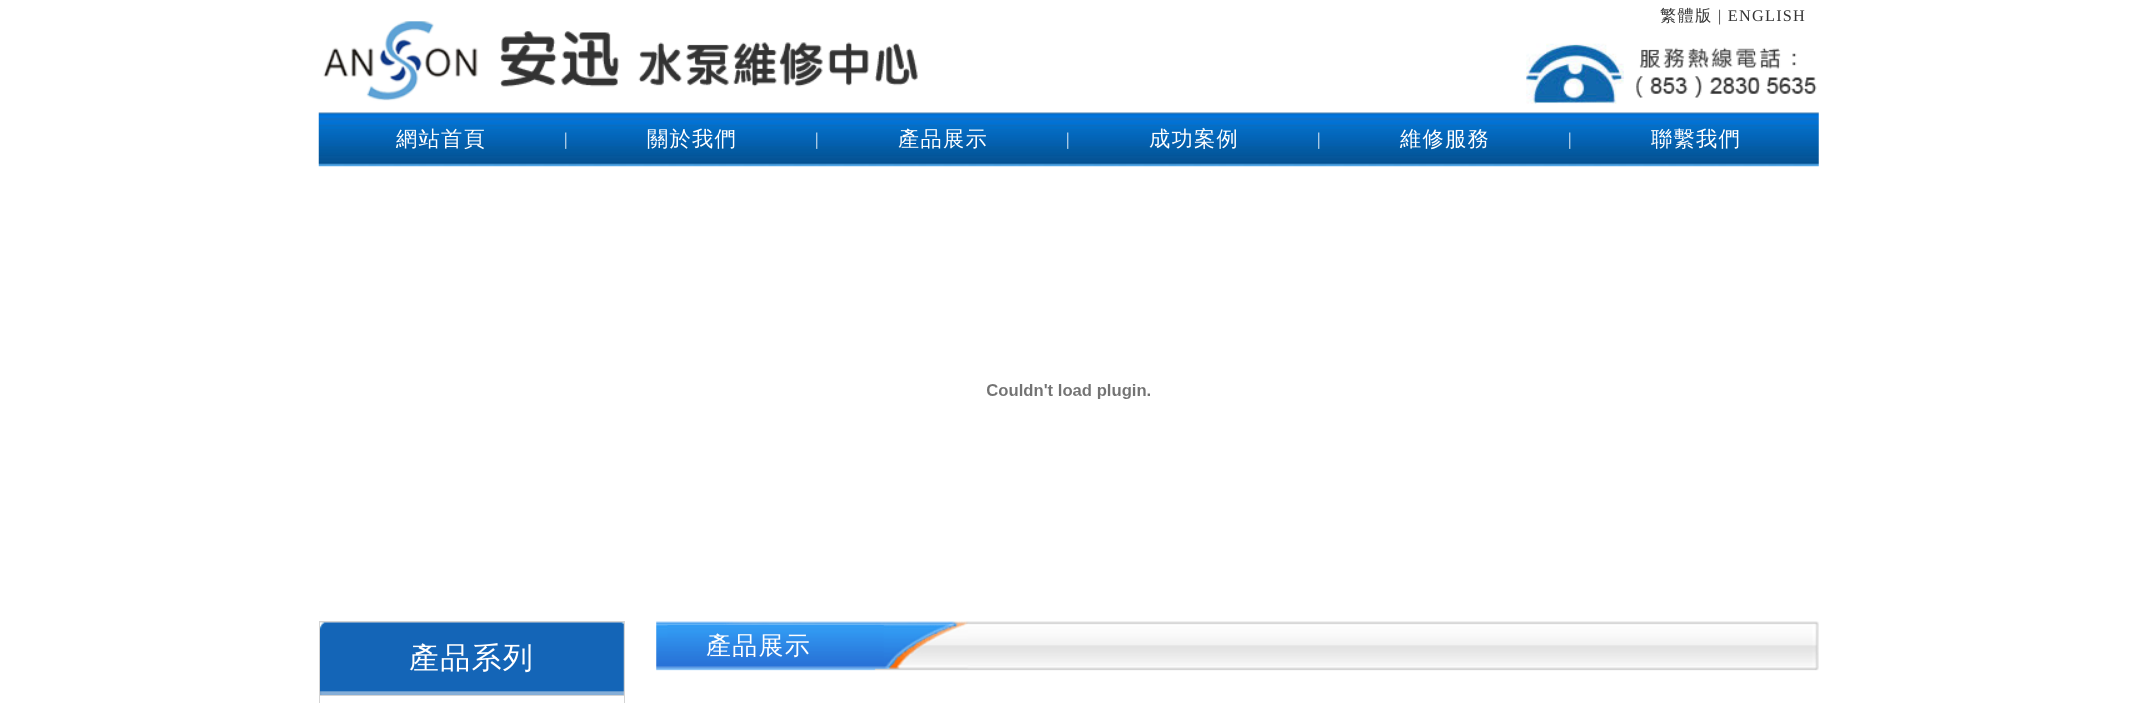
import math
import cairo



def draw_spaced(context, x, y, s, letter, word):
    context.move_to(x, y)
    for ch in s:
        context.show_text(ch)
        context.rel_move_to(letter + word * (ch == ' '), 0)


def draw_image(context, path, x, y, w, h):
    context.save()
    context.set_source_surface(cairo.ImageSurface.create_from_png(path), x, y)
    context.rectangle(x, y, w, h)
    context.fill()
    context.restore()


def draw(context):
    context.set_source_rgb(1, 1, 1)
    context.paint()
    draw_image(context, "images/1.png", 1526, 43, 291, 61)
    draw_image(context, "images/2.png", 323, 21, 155, 80)
    draw_image(context, "images/3.png", 500, 31, 418, 56)
    draw_image(context, "images/4.png", 318, 112, 1501, 55)
    draw_image(context, "images/5.png", 987, 384, 163, 15)
    context.set_source_rgb(212 / 255, 212 / 255, 212 / 255)
    context.rectangle(319, 621, 306, 82)
    context.fill()
    draw_image(context, "images/6.png", 320, 622, 304, 73)
    context.set_source_rgb(1, 1, 1)
    context.rectangle(320, 696, 304, 7)
    context.fill()
    draw_image(context, "images/7.png", 656, 621, 1163, 50)
    context.select_font_face("WenQuanYi Zen Hei Medium")
    context.set_font_size(16.25)
    context.set_source_rgb(51 / 255, 51 / 255, 51 / 255)
    draw_spaced(context, 1660, 21, "繁體版", 1.25, 0)
    context.select_font_face("Liberation Serif")
    draw_spaced(context, 1718, 21, "| ENGLISH", 1.25, 0)
    context.select_font_face("WenQuanYi Zen Hei Medium")
    context.set_font_size(21.25)
    context.set_source_rgb(1, 1, 1)
    draw_spaced(context, 396, 146, "網站首頁", 1.25, 0)
    context.select_font_face("Liberation Serif")
    context.set_font_size(18)
    draw_spaced(context, 564, 145, "|", 1.25, 0)
    context.select_font_face("WenQuanYi Zen Hei Medium")
    context.set_font_size(21.25)
    draw_spaced(context, 647, 146, "關於我們", 1.25, 0)
    context.select_font_face("Liberation Serif")
    context.set_font_size(18)
    draw_spaced(context, 815, 145, "|", 1.25, 0)
    context.select_font_face("WenQuanYi Zen Hei Medium")
    context.set_font_size(21.25)
    draw_spaced(context, 898, 146, "產品展示", 1.25, 0)
    context.select_font_face("Liberation Serif")
    context.set_font_size(18)
    draw_spaced(context, 1066, 145, "|", 1.25, 0)
    context.select_font_face("WenQuanYi Zen Hei Medium")
    context.set_font_size(21.25)
    draw_spaced(context, 1149, 146, "成功案例", 1.25, 0)
    context.select_font_face("Liberation Serif")
    context.set_font_size(18)
    draw_spaced(context, 1317, 145, "|", 1.25, 0)
    context.select_font_face("WenQuanYi Zen Hei Medium")
    context.set_font_size(21.25)
    draw_spaced(context, 1400, 146, "維修服務", 1.25, 0)
    context.select_font_face("Liberation Serif")
    context.set_font_size(18)
    draw_spaced(context, 1568, 145, "|", 1.25, 0)
    context.select_font_face("WenQuanYi Zen Hei Medium")
    context.set_font_size(21.25)
    draw_spaced(context, 1651, 146, "聯繫我們", 1.25, 0)
    context.set_font_size(30)
    draw_spaced(context, 409, 668, "產品系列", 1.25, 0)
    context.set_font_size(25)
    draw_spaced(context, 706, 654, "產品展示", 1.25, 0)


surface = cairo.ImageSurface(cairo.Format.RGB24, 2137, 703)
context = cairo.Context(surface)
options = cairo.FontOptions()
options.set_hint_metrics(cairo.HintMetrics.OFF)
options.set_hint_style(cairo.HintStyle.NONE)
context.set_font_options(options)
context.set_miter_limit(4)
draw(context)
surface.write_to_png("out.png")
